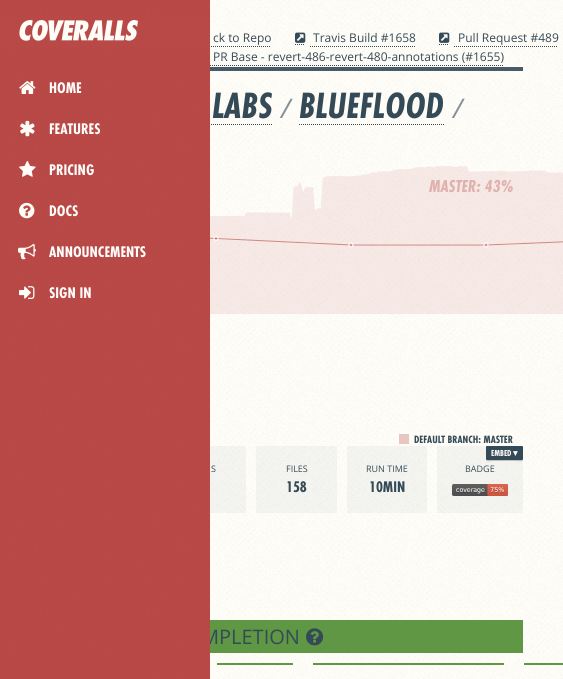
import math
import cairo



def rounded_rect(context, x, y, w, h, r):
    context.new_sub_path()
    for i, (u, v) in enumerate([(x + w - r, y + h - r), (x + r, y + h - r), (x + r, y + r), (x + w - r, y + r)]):
        context.arc(u, v, r, i * math.pi / 2, (i + 1) * math.pi / 2)
    context.close_path()


def draw_image(context, path, x, y, w, h):
    context.save()
    context.set_source_surface(cairo.ImageSurface.create_from_png(path), x, y)
    context.rectangle(x, y, w, h)
    context.fill()
    context.restore()


def draw(context):
    context.set_source_rgb(254 / 255, 253 / 255, 248 / 255)
    context.paint()
    draw_image(context, "images/1.png", 210, 0, 353, 679)
    context.new_path()
    context.move_to(195, 46.5)
    context.line_to(271, 46.5)
    context.set_source_rgb(53 / 255, 74 / 255, 87 / 255)
    context.set_line_width(1)
    context.set_dash([1, 1])
    context.stroke()
    context.new_path()
    context.move_to(295, 44.5)
    context.line_to(305, 44.5)
    context.stroke()
    context.new_path()
    context.move_to(310, 46.5)
    context.line_to(416, 46.5)
    context.stroke()
    draw_image(context, "images/2.png", 295, 32, 11, 11)
    context.new_path()
    context.move_to(439, 44.5)
    context.line_to(449, 44.5)
    context.stroke()
    context.new_path()
    context.move_to(454, 46.5)
    context.line_to(558, 46.5)
    context.stroke()
    draw_image(context, "images/3.png", 439, 32, 11, 11)
    context.new_path()
    context.move_to(210, 65.5)
    context.line_to(504, 65.5)
    context.stroke()
    context.set_source_rgba(53 / 255, 74 / 255, 87 / 255, 0.9)
    context.rectangle(210, 67, 313, 4)
    context.fill()
    context.new_path()
    context.move_to(113, 124.5)
    context.line_to(272, 124.5)
    context.set_source_rgb(53 / 255, 74 / 255, 87 / 255)
    context.stroke()
    context.new_path()
    context.move_to(299, 124.5)
    context.line_to(444, 124.5)
    context.stroke()
    draw_image(context, "images/12.png", 210, 166, 353, 148)
    context.new_path()
    context.move_to(81, 233)
    context.line_to(216, 238.5)
    context.line_to(351, 245)
    context.line_to(486, 245)
    context.line_to(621, 239.5)
    context.set_source_rgba(185 / 255, 73 / 255, 71 / 255, 0.6)
    context.set_dash([])
    context.stroke()
    context.set_source_rgba(185 / 255, 73 / 255, 71 / 255, 0.32)
    context.arc(216, 238.4, 2, 0, 2 * math.pi)
    context.fill_preserve()
    context.set_source_rgba(254 / 255, 253 / 255, 248 / 255, 0.8)
    context.set_line_width(1.5)
    context.stroke()
    context.set_source_rgba(185 / 255, 73 / 255, 71 / 255, 0.32)
    context.arc(351, 245, 2, 0, 2 * math.pi)
    context.fill_preserve()
    context.set_source_rgba(254 / 255, 253 / 255, 248 / 255, 0.8)
    context.stroke()
    context.set_source_rgba(185 / 255, 73 / 255, 71 / 255, 0.32)
    context.arc(486, 245, 2, 0, 2 * math.pi)
    context.fill_preserve()
    context.set_source_rgba(254 / 255, 253 / 255, 248 / 255, 0.8)
    context.stroke()
    context.set_source_rgba(185 / 255, 73 / 255, 71 / 255, 0.3)
    context.rectangle(399, 434, 10, 10)
    context.fill()
    context.set_source_rgba(53 / 255, 74 / 255, 87 / 255, 0.05)
    context.rectangle(210, 446, 36, 67)
    context.fill()
    context.rectangle(256, 446, 81, 67)
    context.fill()
    context.rectangle(347, 446, 80, 67)
    context.fill()
    context.rectangle(437, 446, 86, 67)
    context.fill()
    context.set_source_rgba(0, 0, 0, 0.2)
    context.new_path()
    context.move_to(486, 459)
    context.curve_to(486, 462.5, 489, 461, 493, 461)
    context.line_to(516, 461)
    context.curve_to(520, 461, 523, 462.5, 523, 459)
    context.curve_to(523, 459.5, 522.5, 460, 522, 460)
    context.line_to(487, 460)
    context.curve_to(486.5, 460, 486, 459.5, 486, 459)
    context.close_path()
    context.fill()
    context.set_source_rgb(53 / 255, 74 / 255, 87 / 255)
    rounded_rect(context, 486, 446, 37, 14, 1)
    context.fill()
    draw_image(context, "images/13.png", 452, 484, 56, 12)
    context.set_source_rgb(95 / 255, 151 / 255, 68 / 255)
    context.rectangle(210, 620, 313, 33)
    context.fill()
    draw_image(context, "images/14.png", 306, 628, 18, 18)
    context.rectangle(217, 663, 76, 2)
    context.fill()
    context.rectangle(313, 663, 191, 2)
    context.fill()
    context.rectangle(524, 663, 39, 2)
    context.fill()
    context.select_font_face("Open Sans")
    context.set_font_size(12)
    context.set_source_rgb(53 / 255, 74 / 255, 87 / 255)
    context.move_to(213, 42)
    context.show_text("ck to Repo")
    context.move_to(313, 42)
    context.show_text("Travis Build #1658")
    context.move_to(458, 42)
    context.show_text("Pull Request #489")
    context.move_to(213, 61)
    context.show_text("PR Base - revert-486-revert-480-annotations (#1655)")
    context.select_font_face("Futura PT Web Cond", cairo.FontSlant.ITALIC, cairo.FontWeight.BOLD)
    context.set_font_size(38)
    context.move_to(212, 118)
    context.show_text("LABS")
    context.select_font_face("Open Sans", cairo.FontSlant.ITALIC)
    context.set_font_size(27)
    context.set_source_rgb(133 / 255, 145 / 255, 151 / 255)
    context.move_to(281, 118)
    context.show_text("/")
    context.select_font_face("Futura PT Web Cond", cairo.FontSlant.ITALIC, cairo.FontWeight.BOLD)
    context.set_font_size(38)
    context.set_source_rgb(53 / 255, 74 / 255, 87 / 255)
    context.move_to(299, 118)
    context.show_text("BLUEFLOOD")
    context.select_font_face("Open Sans", cairo.FontSlant.ITALIC)
    context.set_font_size(27)
    context.set_source_rgb(133 / 255, 145 / 255, 151 / 255)
    context.move_to(453, 118)
    context.show_text("/")
    context.select_font_face("Futura PT Web Cond", cairo.FontSlant.ITALIC, cairo.FontWeight.BOLD)
    context.set_font_size(18)
    context.set_source_rgb(224 / 255, 177 / 255, 174 / 255)
    context.move_to(429, 192)
    context.show_text("MASTER: 43%")
    context.select_font_face("Futura PT Web Cond", cairo.FontSlant.NORMAL, cairo.FontWeight.BOLD)
    context.set_font_size(11)
    context.set_source_rgb(53 / 255, 74 / 255, 87 / 255)
    context.move_to(414, 443)
    context.show_text("DEFAULT BRANCH: MASTER")
    context.select_font_face("Open Sans")
    context.set_font_size(9)
    context.move_to(211, 472)
    context.show_text("S")
    context.move_to(286, 472)
    context.show_text("FILES")
    context.select_font_face("Futura PT Web Cond", cairo.FontSlant.NORMAL, cairo.FontWeight.BOLD)
    context.set_font_size(16)
    context.move_to(286, 492)
    context.show_text("158")
    context.select_font_face("Open Sans")
    context.set_font_size(9)
    context.move_to(366, 472)
    context.show_text("RUN TIME")
    context.select_font_face("Futura PT Web Cond", cairo.FontSlant.NORMAL, cairo.FontWeight.BOLD)
    context.set_font_size(16)
    context.move_to(369, 492)
    context.show_text("10MIN")
    context.set_font_size(9)
    context.set_source_rgb(1, 253 / 255, 250 / 255)
    context.move_to(491, 456)
    context.show_text("EMBED")
    context.select_font_face("DejaVu Sans", cairo.FontSlant.NORMAL, cairo.FontWeight.BOLD)
    context.move_to(513, 456)
    context.show_text("▾")
    context.select_font_face("Open Sans")
    context.set_source_rgb(53 / 255, 74 / 255, 87 / 255)
    context.move_to(465, 472)
    context.show_text("BADGE")
    context.set_font_size(20)
    context.move_to(201, 644)
    context.show_text("MPLETION")
    context.set_source_rgb(185 / 255, 73 / 255, 71 / 255)
    context.rectangle(0, 0, 210, 679)
    context.fill()
    draw_image(context, "images/4.png", 0, 0, 210, 679)
    context.rectangle(0, 18, 210, 29)
    context.fill()
    draw_image(context, "images/5.png", 19, 20, 119, 21)
    context.select_font_face("Futura PT Web Cond", cairo.FontSlant.NORMAL, cairo.FontWeight.BOLD)
    context.set_font_size(16)
    context.set_source_rgb(1, 253 / 255, 250 / 255)
    context.move_to(49, 298)
    context.show_text("SIGN IN")
    draw_image(context, "images/11.png", 19, 286, 16, 13)
    context.move_to(49, 257)
    context.show_text("ANNOUNCEMENTS")
    draw_image(context, "images/10.png", 18, 243, 18, 17)
    context.move_to(49, 216)
    context.show_text("DOCS")
    draw_image(context, "images/9.png", 19, 202, 16, 17)
    context.move_to(49, 175)
    context.show_text("PRICING")
    draw_image(context, "images/8.png", 19, 160, 17, 17)
    context.move_to(49, 134)
    context.show_text("FEATURES")
    draw_image(context, "images/7.png", 20, 120, 15, 17)
    context.move_to(49, 93)
    context.show_text("HOME")
    draw_image(context, "images/6.png", 19, 81, 17, 13)


surface = cairo.ImageSurface(cairo.Format.RGB24, 563, 679)
context = cairo.Context(surface)
options = cairo.FontOptions()
options.set_hint_metrics(cairo.HintMetrics.OFF)
options.set_hint_style(cairo.HintStyle.NONE)
context.set_font_options(options)
context.set_miter_limit(4)
draw(context)
surface.write_to_png("out.png")
